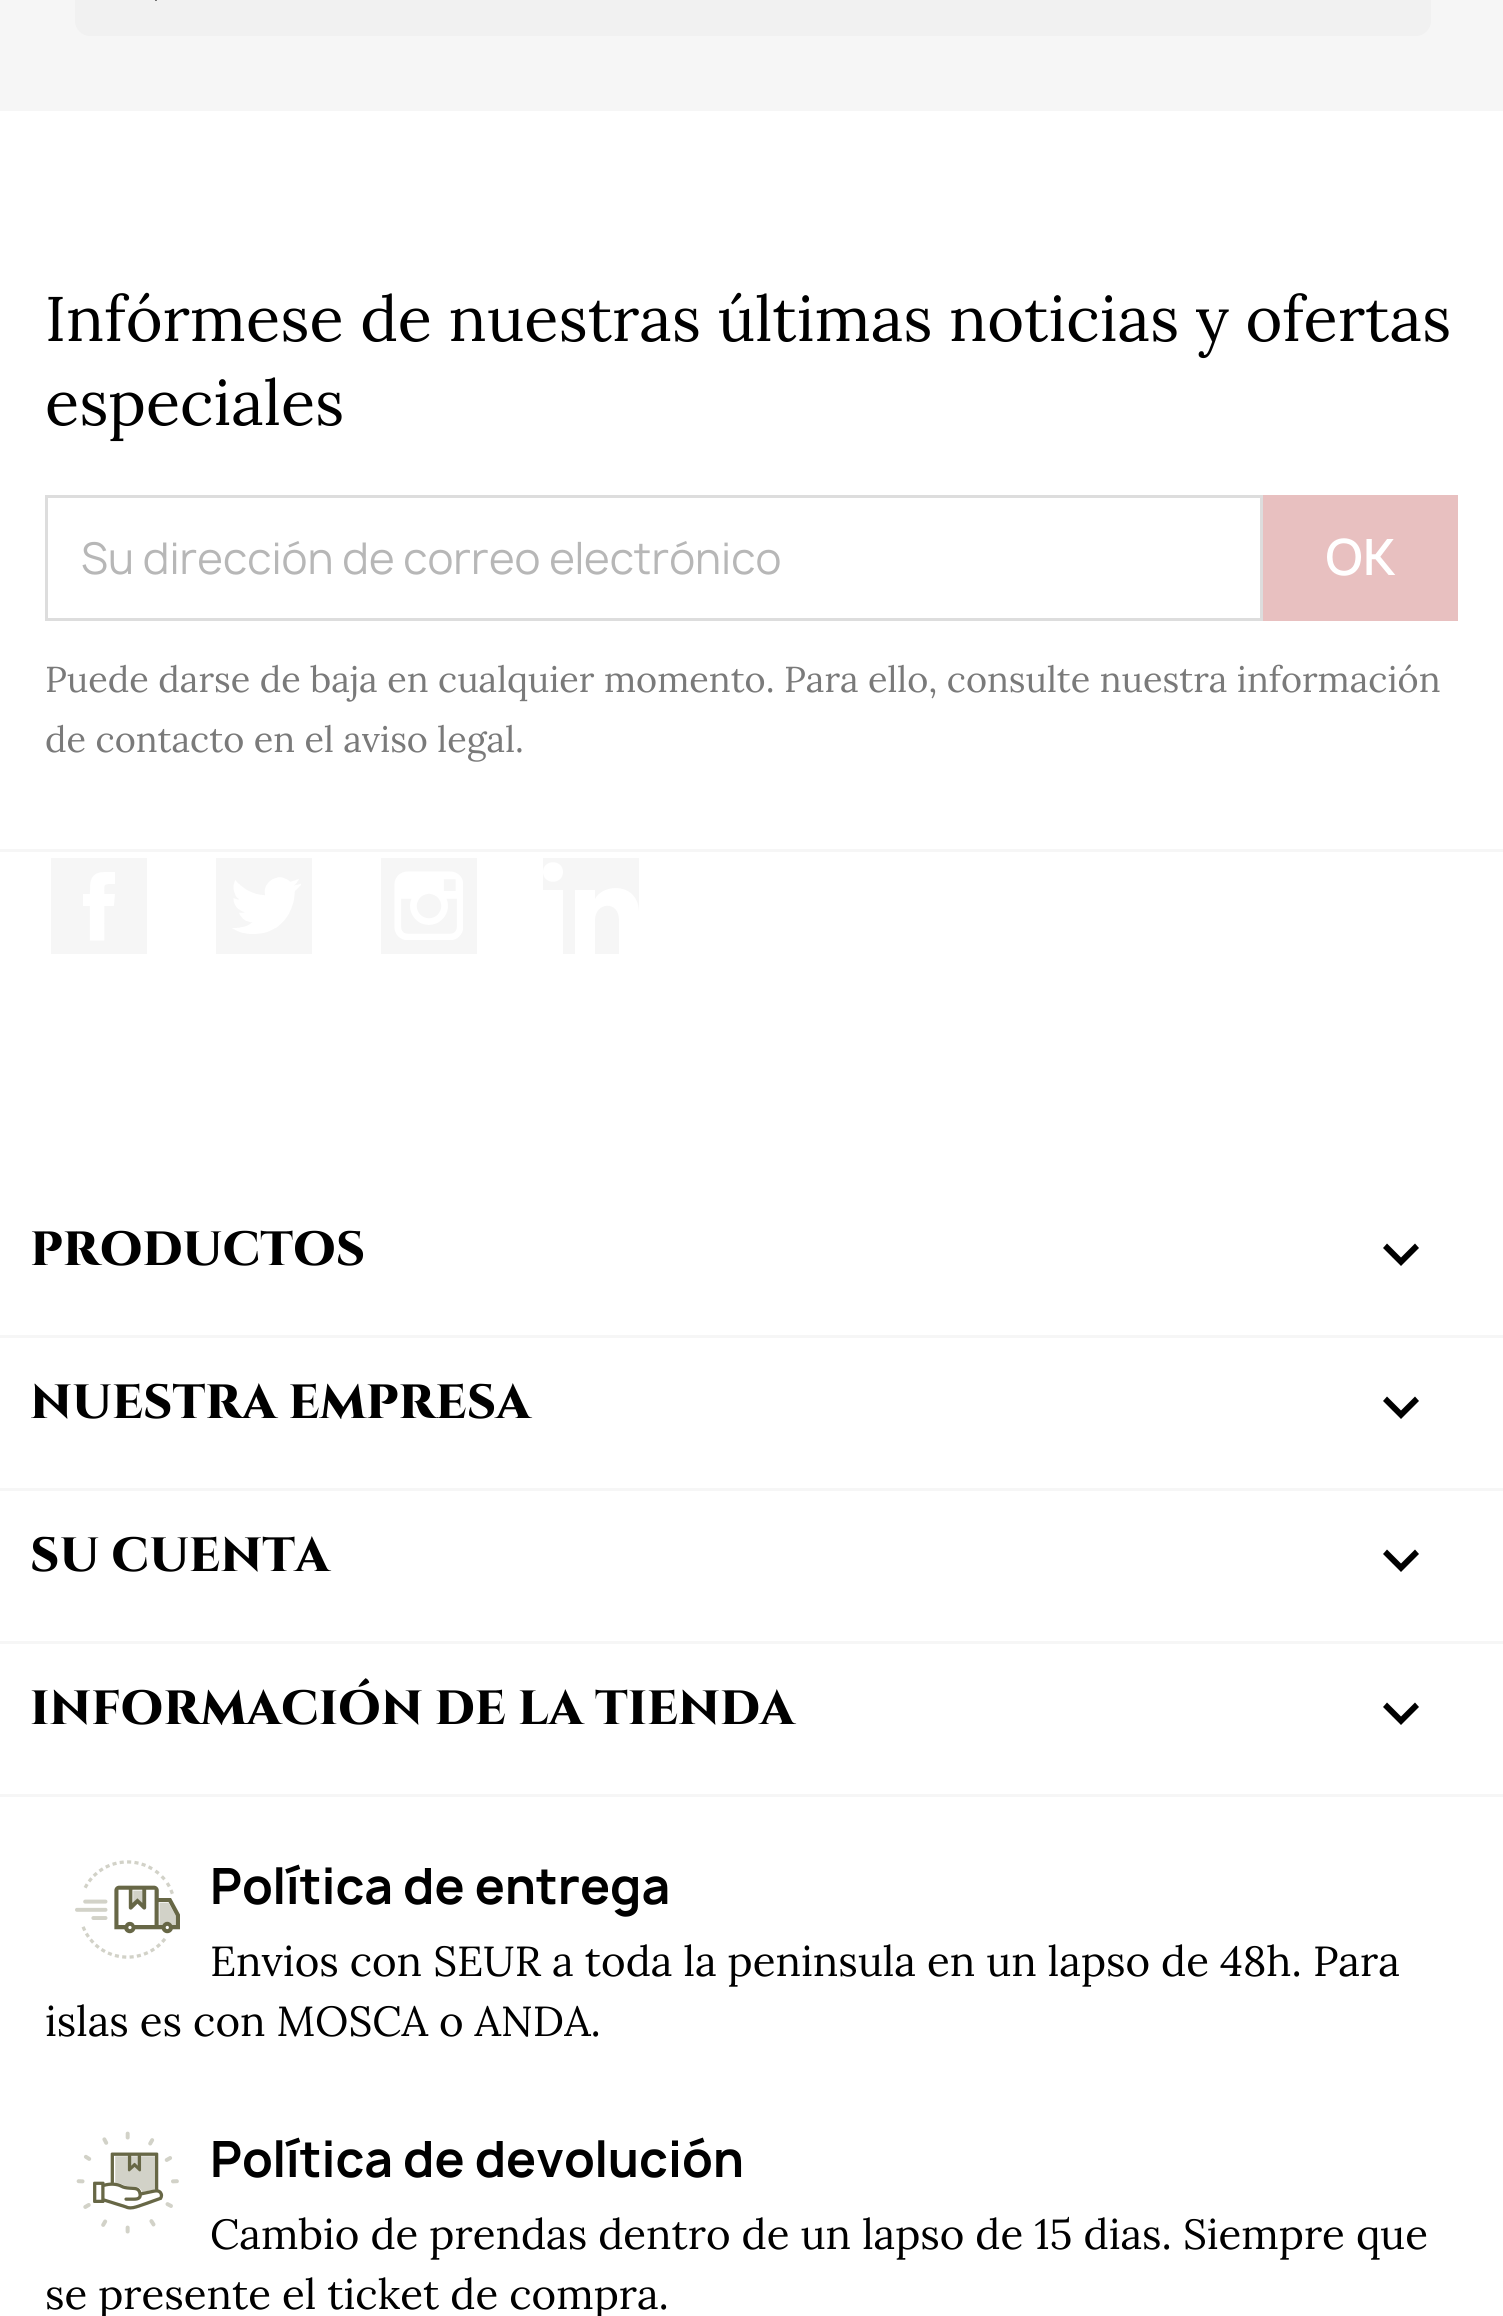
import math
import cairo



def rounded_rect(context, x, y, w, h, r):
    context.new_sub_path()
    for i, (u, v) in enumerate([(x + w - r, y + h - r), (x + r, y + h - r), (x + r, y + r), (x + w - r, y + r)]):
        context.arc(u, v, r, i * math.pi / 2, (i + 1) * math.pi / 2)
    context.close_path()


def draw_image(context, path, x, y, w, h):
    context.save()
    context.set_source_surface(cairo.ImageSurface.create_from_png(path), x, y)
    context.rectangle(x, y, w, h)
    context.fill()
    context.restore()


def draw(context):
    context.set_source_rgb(1, 1, 1)
    context.paint()
    context.set_source_rgb(246 / 255, 246 / 255, 246 / 255)
    context.rectangle(0, 0, 1503, 111)
    context.fill()
    context.set_source_rgb(241 / 255, 241 / 255, 241 / 255)
    rounded_rect(context, 75, -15, 1356, 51, 15)
    context.fill()
    context.set_source_rgb(0, 0, 0)
    context.new_path()
    context.move_to(118, -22)
    context.curve_to(131, -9, 150, -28, 137, -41)
    context.curve_to(125, -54, 105, -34, 118, -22)
    context.close_path()
    context.move_to(146, -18)
    context.line_to(160, -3)
    context.line_to(156, 1)
    context.line_to(141, -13)
    context.line_to(141, -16)
    context.line_to(140, -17)
    context.curve_to(122, -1, 96, -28, 114, -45)
    context.curve_to(131, -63, 158, -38, 142, -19)
    context.line_to(143, -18)
    context.close_path()
    context.fill()
    context.set_source_rgb(246 / 255, 246 / 255, 246 / 255)
    context.rectangle(0, 849, 1503, 3)
    context.fill()
    context.rectangle(46.5, 496.5, 1215, 123)
    context.set_source_rgb(221 / 255, 221 / 255, 221 / 255)
    context.set_line_width(3)
    context.stroke()
    context.set_source_rgb(232 / 255, 192 / 255, 192 / 255)
    context.rectangle(1263, 495, 195, 126)
    context.fill()
    context.set_source_rgb(246 / 255, 246 / 255, 246 / 255)
    context.rectangle(51, 858, 96, 96)
    context.fill()
    draw_image(context, "images/1.png", 83, 872, 32, 69)
    context.rectangle(216, 858, 96, 96)
    context.fill()
    draw_image(context, "images/2.png", 232, 877, 69, 57)
    context.rectangle(381, 858, 96, 96)
    context.fill()
    draw_image(context, "images/3.png", 394, 871, 69, 69)
    context.rectangle(543, 858, 96, 96)
    context.fill()
    context.set_source_rgb(1, 1, 1)
    context.new_path()
    context.move_to(563, 872)
    context.curve_to(563, 885, 543, 885, 543, 872)
    context.curve_to(543, 859, 563, 859, 563, 872)
    context.close_path()
    context.move_to(563, 890)
    context.line_to(543, 890)
    context.line_to(543, 954)
    context.line_to(563, 954)
    context.close_path()
    context.move_to(595, 890)
    context.line_to(575, 890)
    context.line_to(575, 954)
    context.line_to(595, 954)
    context.line_to(595, 920)
    context.curve_to(595, 902, 619, 900, 619, 920)
    context.line_to(619, 954)
    context.line_to(639, 954)
    context.line_to(639, 913)
    context.curve_to(639, 882, 603, 883, 595, 899)
    context.close_path()
    context.fill()
    context.set_source_rgb(246 / 255, 246 / 255, 246 / 255)
    context.rectangle(0, 1335, 1503, 3)
    context.fill()
    context.set_source_rgb(0, 0, 0)
    context.new_path()
    context.move_to(1387, 1243.5)
    context.line_to(1401, 1257.5)
    context.line_to(1415, 1243.5)
    context.line_to(1419, 1248)
    context.line_to(1401, 1266)
    context.line_to(1383, 1248)
    context.close_path()
    context.fill()
    context.set_source_rgb(246 / 255, 246 / 255, 246 / 255)
    context.rectangle(0, 1488, 1503, 3)
    context.fill()
    context.set_source_rgb(0, 0, 0)
    context.new_path()
    context.move_to(1387, 1396.5)
    context.line_to(1401, 1410.5)
    context.line_to(1415, 1396.5)
    context.line_to(1419, 1401)
    context.line_to(1401, 1419)
    context.line_to(1383, 1401)
    context.close_path()
    context.fill()
    context.set_source_rgb(246 / 255, 246 / 255, 246 / 255)
    context.rectangle(0, 1641, 1503, 3)
    context.fill()
    context.set_source_rgb(0, 0, 0)
    context.new_path()
    context.move_to(1387, 1549.5)
    context.line_to(1401, 1563.5)
    context.line_to(1415, 1549.5)
    context.line_to(1419, 1554)
    context.line_to(1401, 1572)
    context.line_to(1383, 1554)
    context.close_path()
    context.fill()
    context.set_source_rgb(246 / 255, 246 / 255, 246 / 255)
    context.rectangle(0, 1794, 1503, 3)
    context.fill()
    context.set_source_rgb(0, 0, 0)
    context.new_path()
    context.move_to(1387, 1702.5)
    context.line_to(1401, 1716.5)
    context.line_to(1415, 1702.5)
    context.line_to(1419, 1707)
    context.line_to(1401, 1725)
    context.line_to(1383, 1707)
    context.close_path()
    context.fill()
    draw_image(context, "images/4.png", 75, 1860, 105, 99)
    draw_image(context, "images/5.png", 76, 2131, 103, 103)
    context.select_font_face("Lora")
    context.set_font_size(63)
    context.move_to(45, 341)
    context.show_text("Infórmese de nuestras últimas noticias y ofertas")
    context.move_to(45, 425)
    context.show_text("especiales")
    context.select_font_face("Manrope")
    context.set_font_size(42)
    context.set_source_rgb(183 / 255, 183 / 255, 183 / 255)
    context.move_to(81, 574)
    context.show_text("Su dirección de correo electrónico")
    context.select_font_face("Manrope SemiBold")
    context.set_font_size(48)
    context.set_source_rgb(1, 1, 1)
    context.move_to(1325, 575)
    context.show_text("OK")
    context.select_font_face("Lora")
    context.set_font_size(36)
    context.set_source_rgb(122 / 255, 122 / 255, 122 / 255)
    context.move_to(45, 692)
    context.show_text("Puede darse de baja en cualquier momento. Para ello, consulte nuestra información")
    context.move_to(45, 752)
    context.show_text("de contacto en el aviso legal.")
    context.select_font_face("Cinzel ExtraBold")
    context.set_font_size(48)
    context.set_source_rgb(0, 0, 0)
    context.move_to(30, 1265)
    context.show_text("PRODUCTOS")
    context.move_to(30, 1418)
    context.show_text("NUESTRA EMPRESA")
    context.move_to(30, 1571)
    context.show_text("SU CUENTA")
    context.move_to(30, 1724)
    context.show_text("INFORMACIÓN DE LA TIENDA")
    context.select_font_face("Manrope", cairo.FontSlant.NORMAL, cairo.FontWeight.BOLD)
    context.move_to(210, 1904)
    context.show_text("Política de entrega")
    context.select_font_face("Lora")
    context.set_font_size(42)
    context.move_to(210, 1976)
    context.show_text("Envios con SEUR a toda la peninsula en un lapso de 48h. Para")
    context.move_to(45, 2036)
    context.show_text("islas es con MOSCA o ANDA.")
    context.select_font_face("Manrope", cairo.FontSlant.NORMAL, cairo.FontWeight.BOLD)
    context.set_font_size(48)
    context.move_to(210, 2177)
    context.show_text("Política de devolución")
    context.select_font_face("Lora")
    context.set_font_size(42)
    context.move_to(210, 2249)
    context.show_text("Cambio de prendas dentro de un lapso de 15 dias. Siempre que")
    context.move_to(45, 2309)
    context.show_text("se presente el ticket de compra.")


surface = cairo.ImageSurface(cairo.Format.RGB24, 1503, 2316)
context = cairo.Context(surface)
options = cairo.FontOptions()
options.set_hint_metrics(cairo.HintMetrics.OFF)
options.set_hint_style(cairo.HintStyle.NONE)
context.set_font_options(options)
context.set_miter_limit(4)
draw(context)
surface.write_to_png("out.png")
